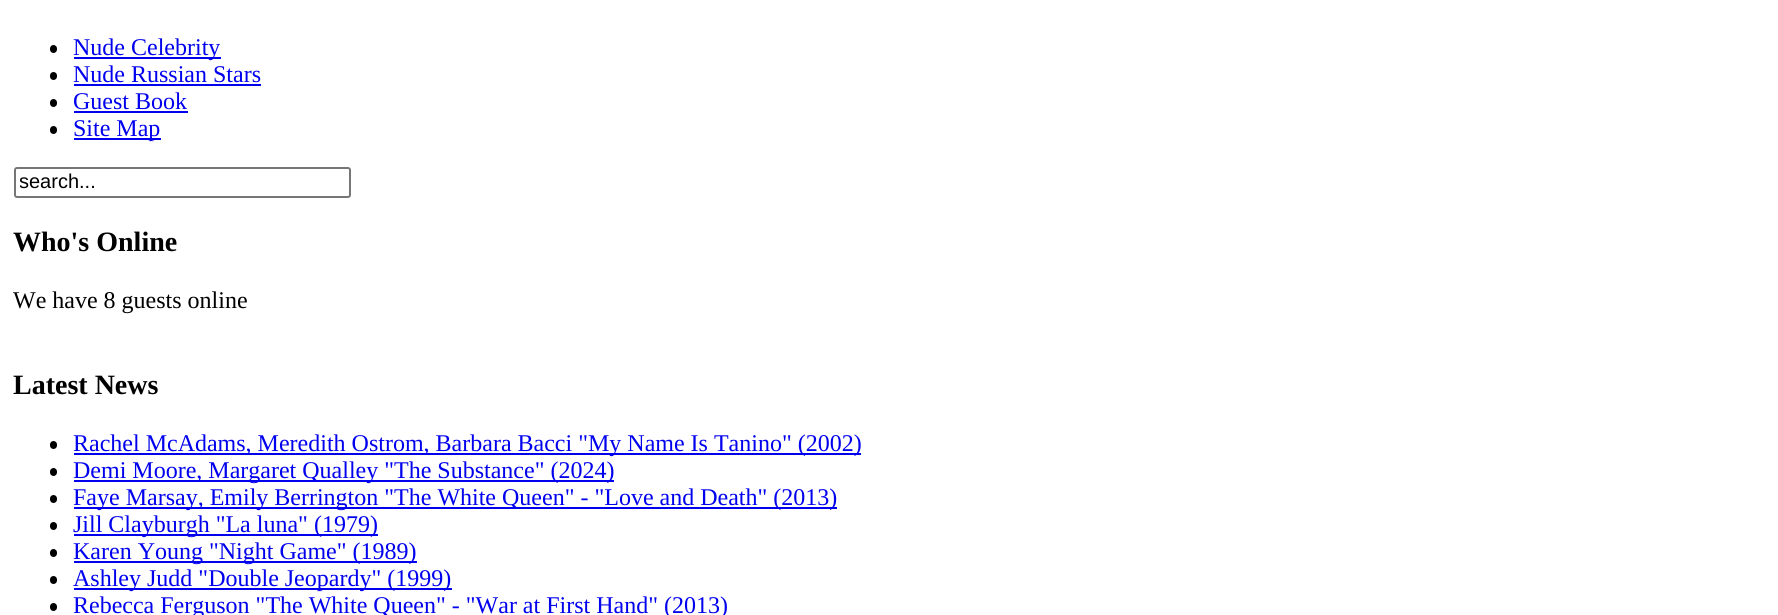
import math
import cairo



def rounded_rect(context, x, y, w, h, r):
    context.new_sub_path()
    for i, (u, v) in enumerate([(x + w - r, y + h - r), (x + r, y + h - r), (x + r, y + r), (x + w - r, y + r)]):
        context.arc(u, v, r, i * math.pi / 2, (i + 1) * math.pi / 2)
    context.close_path()


def draw(context):
    context.set_source_rgb(1, 1, 1)
    context.paint()
    context.set_source_rgb(0, 0, 0)
    rounded_rect(context, 50, 45, 7, 8, 3.5)
    context.fill()
    context.set_source_rgb(0, 0, 238 / 255)
    context.rectangle(74, 57, 147, 2)
    context.fill()
    context.set_source_rgb(0, 0, 0)
    rounded_rect(context, 50, 72, 7, 8, 3.5)
    context.fill()
    context.set_source_rgb(0, 0, 238 / 255)
    context.rectangle(74, 84, 187, 2)
    context.fill()
    context.set_source_rgb(0, 0, 0)
    rounded_rect(context, 50, 99, 7, 8, 3.5)
    context.fill()
    context.set_source_rgb(0, 0, 238 / 255)
    context.rectangle(74, 111, 114, 2)
    context.fill()
    context.set_source_rgb(0, 0, 0)
    rounded_rect(context, 50, 126, 7, 8, 3.5)
    context.fill()
    context.set_source_rgb(0, 0, 238 / 255)
    context.rectangle(74, 138, 87, 2)
    context.fill()
    rounded_rect(context, 15, 168, 335, 29, 2)
    context.set_source_rgb(118 / 255, 118 / 255, 118 / 255)
    context.stroke()
    context.set_source_rgb(0, 0, 0)
    rounded_rect(context, 50, 441, 7, 8, 3.5)
    context.fill()
    context.set_source_rgb(0, 0, 238 / 255)
    context.rectangle(74, 453, 787, 2)
    context.fill()
    context.set_source_rgb(0, 0, 0)
    rounded_rect(context, 50, 468, 7, 8, 3.5)
    context.fill()
    context.set_source_rgb(0, 0, 238 / 255)
    context.rectangle(74, 480, 540, 2)
    context.fill()
    context.set_source_rgb(0, 0, 0)
    rounded_rect(context, 50, 495, 7, 8, 3.5)
    context.fill()
    context.set_source_rgb(0, 0, 238 / 255)
    context.rectangle(74, 507, 763, 2)
    context.fill()
    context.set_source_rgb(0, 0, 0)
    rounded_rect(context, 50, 522, 7, 8, 3.5)
    context.fill()
    context.set_source_rgb(0, 0, 238 / 255)
    context.rectangle(74, 534, 304, 2)
    context.fill()
    context.set_source_rgb(0, 0, 0)
    rounded_rect(context, 50, 549, 7, 8, 3.5)
    context.fill()
    context.set_source_rgb(0, 0, 238 / 255)
    context.rectangle(74, 561, 343, 2)
    context.fill()
    context.set_source_rgb(0, 0, 0)
    rounded_rect(context, 50, 576, 7, 8, 3.5)
    context.fill()
    context.set_source_rgb(0, 0, 238 / 255)
    context.rectangle(74, 588, 378, 2)
    context.fill()
    context.set_source_rgb(0, 0, 0)
    rounded_rect(context, 50, 603, 7, 8, 3.5)
    context.fill()
    context.select_font_face("Liberation Serif")
    context.set_font_size(24)
    context.set_source_rgb(0, 0, 238 / 255)
    context.move_to(73, 55)
    context.show_text("Nude Celebrity")
    context.move_to(73, 82)
    context.show_text("Nude Russian Stars")
    context.move_to(73, 109)
    context.show_text("Guest Book")
    context.move_to(73, 136)
    context.show_text("Site Map")
    context.save()
    context.rectangle(20, 171, 325, 23)
    context.clip()
    context.select_font_face("Liberation Sans")
    context.set_font_size(20)
    context.set_source_rgb(0, 0, 0)
    context.move_to(19, 188)
    context.show_text("search...")
    context.restore()
    context.select_font_face("Liberation Serif", cairo.FontSlant.NORMAL, cairo.FontWeight.BOLD)
    context.set_font_size(28)
    context.set_source_rgb(0, 0, 0)
    context.move_to(13, 251)
    context.show_text("Who's Online")
    context.select_font_face("Liberation Serif")
    context.set_font_size(24)
    context.move_to(13, 308)
    context.show_text("We have 8 guests online")
    context.select_font_face("Liberation Serif", cairo.FontSlant.NORMAL, cairo.FontWeight.BOLD)
    context.set_font_size(28)
    context.move_to(13, 394)
    context.show_text("Latest News")
    context.select_font_face("Liberation Serif")
    context.set_font_size(24)
    context.set_source_rgb(0, 0, 238 / 255)
    context.move_to(73, 451)
    context.show_text("Rachel McAdams, Meredith Ostrom, Barbara Bacci \"My Name Is Tanino\" (2002)")
    context.move_to(73, 478)
    context.show_text("Demi Moore, Margaret Qualley \"The Substance\" (2024)")
    context.move_to(73, 505)
    context.show_text("Faye Marsay, Emily Berrington \"The White Queen\" - \"Love and Death\" (2013)")
    context.move_to(73, 532)
    context.show_text("Jill Clayburgh \"La luna\" (1979)")
    context.move_to(73, 559)
    context.show_text("Karen Young \"Night Game\" (1989)")
    context.move_to(73, 586)
    context.show_text("Ashley Judd \"Double Jeopardy\" (1999)")
    context.move_to(73, 613)
    context.show_text("Rebecca Ferguson \"The White Queen\" - \"War at First Hand\" (2013)")


surface = cairo.ImageSurface(cairo.Format.RGB24, 1778, 615)
context = cairo.Context(surface)
options = cairo.FontOptions()
options.set_hint_metrics(cairo.HintMetrics.OFF)
options.set_hint_style(cairo.HintStyle.NONE)
context.set_font_options(options)
context.set_miter_limit(4)
draw(context)
surface.write_to_png("out.png")
